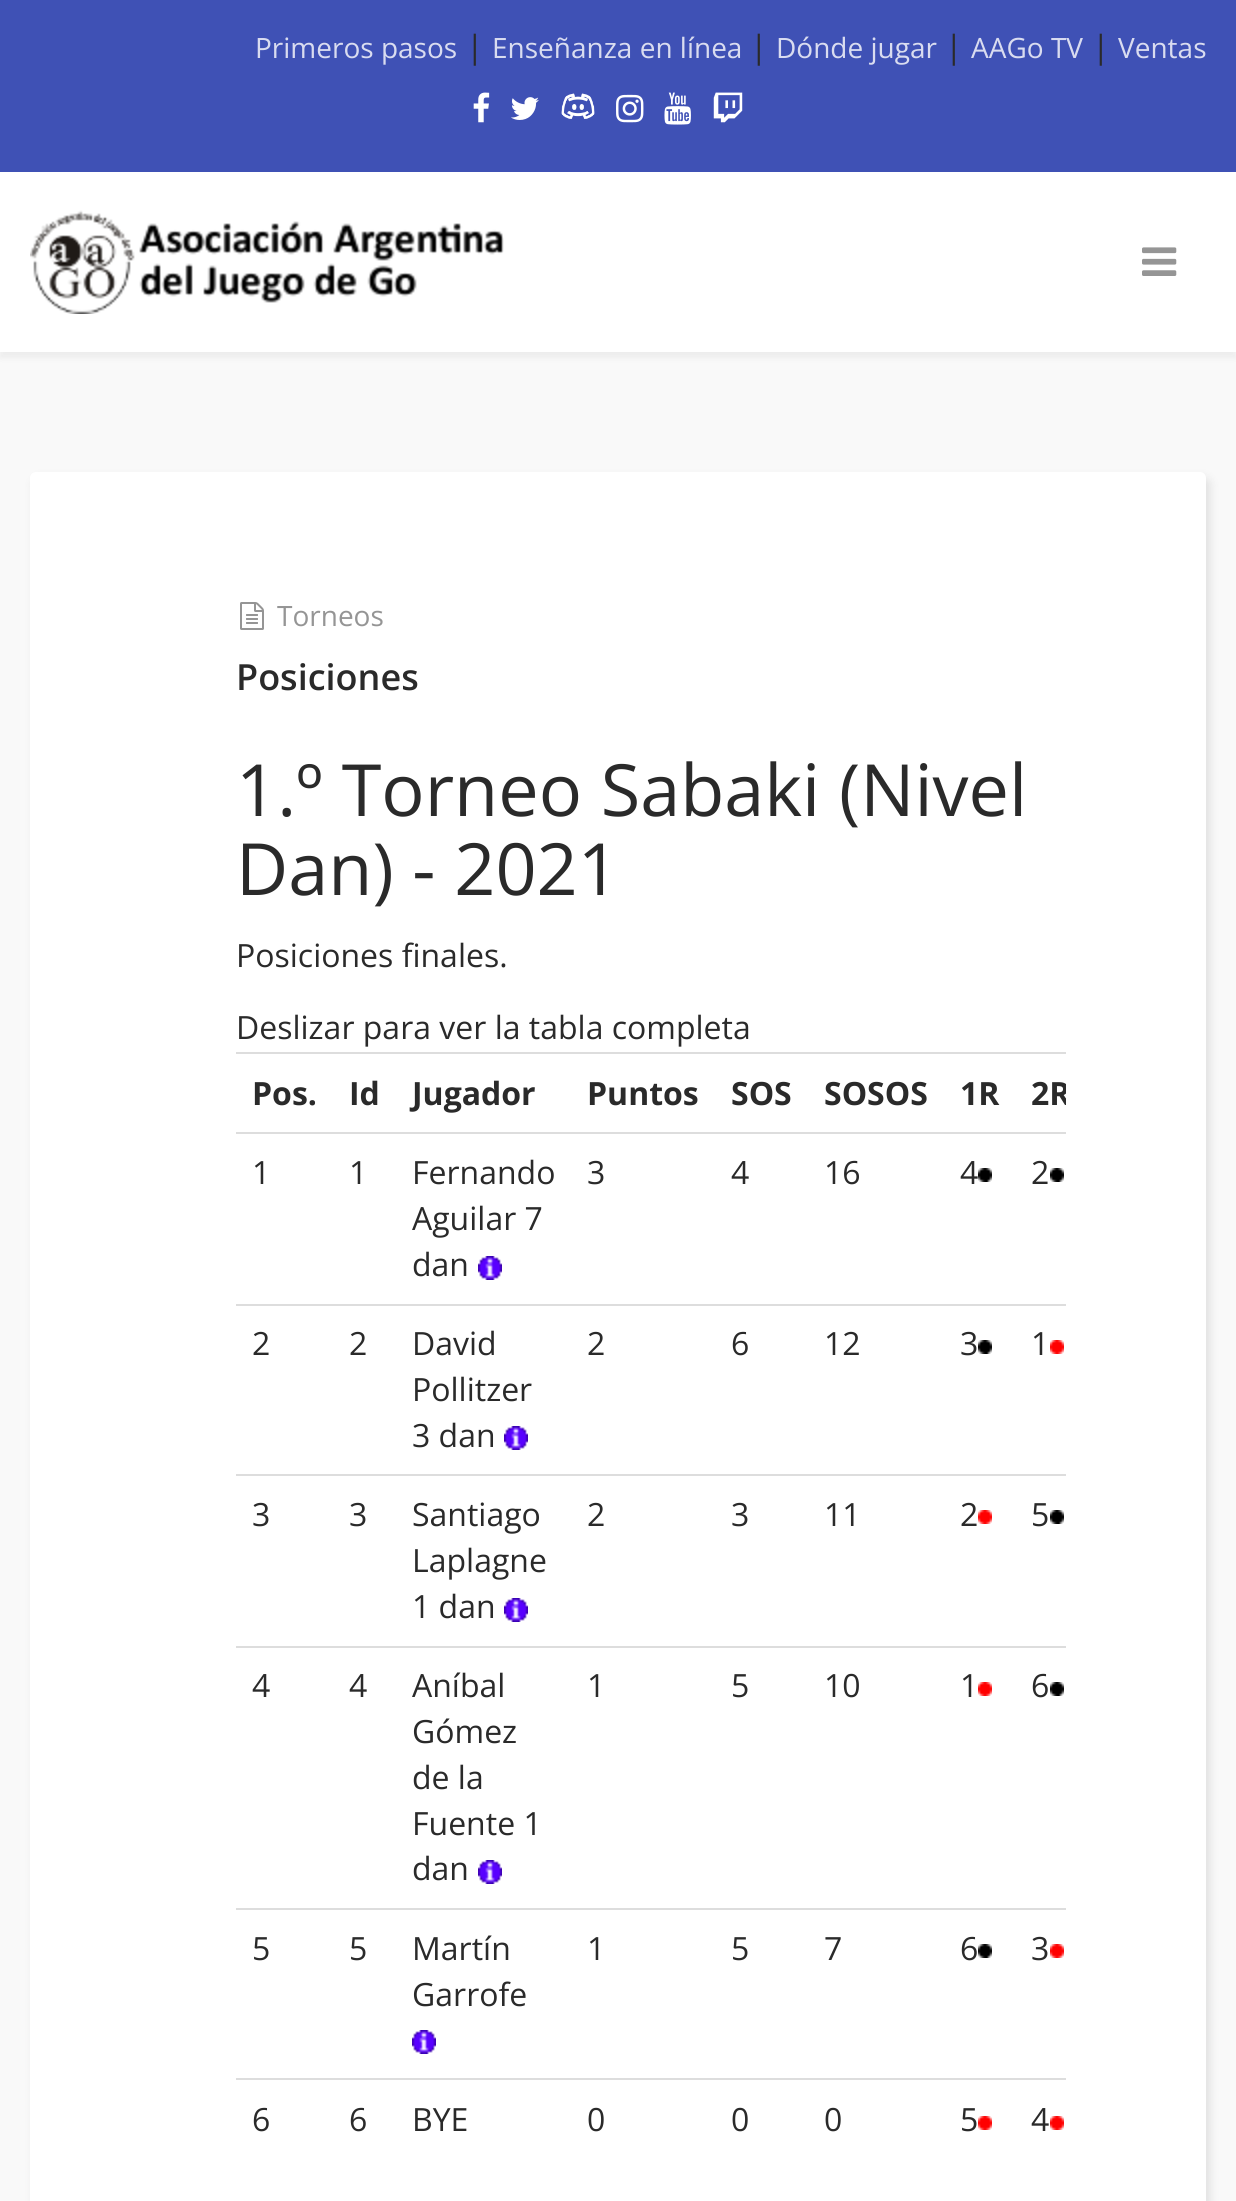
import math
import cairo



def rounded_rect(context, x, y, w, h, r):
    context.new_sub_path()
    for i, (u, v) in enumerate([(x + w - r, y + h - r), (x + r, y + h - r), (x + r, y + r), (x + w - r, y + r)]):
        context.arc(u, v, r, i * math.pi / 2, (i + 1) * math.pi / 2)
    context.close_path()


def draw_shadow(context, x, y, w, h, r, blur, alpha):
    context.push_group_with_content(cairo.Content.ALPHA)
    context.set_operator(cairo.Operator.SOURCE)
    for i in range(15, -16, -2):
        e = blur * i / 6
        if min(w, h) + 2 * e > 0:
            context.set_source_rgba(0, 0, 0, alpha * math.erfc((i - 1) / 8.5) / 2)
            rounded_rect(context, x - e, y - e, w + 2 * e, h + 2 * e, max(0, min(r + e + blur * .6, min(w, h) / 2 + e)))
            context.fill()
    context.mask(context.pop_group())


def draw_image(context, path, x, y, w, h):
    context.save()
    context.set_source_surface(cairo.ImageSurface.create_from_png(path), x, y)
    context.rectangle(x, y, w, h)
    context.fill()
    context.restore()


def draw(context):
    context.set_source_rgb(249 / 255, 249 / 255, 249 / 255)
    context.paint()
    context.set_source_rgb(63 / 255, 81 / 255, 181 / 255)
    context.rectangle(0, 0, 1236, 172)
    context.fill()
    draw_image(context, "images/1.png", 473, 92, 17, 31)
    draw_image(context, "images/2.png", 511, 97, 28, 23)
    draw_image(context, "images/3.png", 561, 93, 34, 26)
    draw_image(context, "images/4.png", 616, 94, 28, 29)
    draw_image(context, "images/5.png", 664, 92, 27, 33)
    draw_image(context, "images/6.png", 713, 92, 30, 31)
    context.set_source_rgb(0, 0, 0)
    draw_shadow(context, 0, 178, 1236, 180, 0, 3, 0.05)
    context.set_source_rgb(1, 1, 1)
    context.rectangle(0, 172, 1236, 180)
    context.fill()
    draw_image(context, "images/7.png", 30, 210, 474, 104)
    draw_image(context, "images/8.png", 1142, 247, 35, 29)
    context.set_source_rgb(0, 0, 0)
    draw_shadow(context, 34, 478, 1176, 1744, 6, 5, 0.1)
    context.set_source_rgb(1, 1, 1)
    rounded_rect(context, 30, 472, 1176, 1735, 6)
    context.fill()
    draw_image(context, "images/9.png", 240, 602, 24, 28)
    context.set_source_rgb(221 / 255, 221 / 255, 221 / 255)
    context.rectangle(236, 1052, 830, 2)
    context.fill()
    draw_image(context, "images/10.png", 478, 1256, 24, 24)
    draw_image(context, "images/11.png", 978, 1168, 14, 14)
    context.rectangle(236, 1132, 830, 2)
    context.fill()
    draw_image(context, "images/11.png", 1050, 1168, 14, 14)
    draw_image(context, "images/10.png", 504, 1426, 24, 24)
    draw_image(context, "images/11.png", 978, 1340, 14, 14)
    context.rectangle(236, 1304, 830, 2)
    context.fill()
    draw_image(context, "images/12.png", 1050, 1340, 14, 14)
    draw_image(context, "images/10.png", 504, 1598, 24, 24)
    draw_image(context, "images/12.png", 978, 1510, 14, 14)
    context.rectangle(236, 1474, 830, 2)
    context.fill()
    draw_image(context, "images/11.png", 1050, 1510, 14, 14)
    draw_image(context, "images/10.png", 478, 1860, 24, 24)
    draw_image(context, "images/12.png", 978, 1682, 14, 14)
    context.rectangle(236, 1646, 830, 2)
    context.fill()
    draw_image(context, "images/11.png", 1050, 1682, 14, 14)
    draw_image(context, "images/10.png", 412, 2030, 24, 24)
    draw_image(context, "images/11.png", 978, 1944, 14, 14)
    context.rectangle(236, 1908, 830, 2)
    context.fill()
    draw_image(context, "images/12.png", 1050, 1944, 14, 14)
    draw_image(context, "images/12.png", 978, 2116, 14, 14)
    context.rectangle(236, 2078, 830, 2)
    context.fill()
    draw_image(context, "images/12.png", 1050, 2116, 14, 14)
    context.select_font_face("Open Sans")
    context.set_font_size(28)
    context.set_source_rgb(217 / 255, 220 / 255, 240 / 255)
    context.move_to(255, 58)
    context.show_text("Primeros pasos")
    context.set_font_size(32)
    context.set_source_rgb(42 / 255, 42 / 255, 42 / 255)
    context.move_to(466, 58)
    context.show_text("|")
    context.set_font_size(28)
    context.set_source_rgb(217 / 255, 220 / 255, 240 / 255)
    context.move_to(492, 58)
    context.show_text("Enseñanza en línea")
    context.set_font_size(32)
    context.set_source_rgb(42 / 255, 42 / 255, 42 / 255)
    context.move_to(750, 58)
    context.show_text("|")
    context.set_font_size(28)
    context.set_source_rgb(217 / 255, 220 / 255, 240 / 255)
    context.move_to(776, 58)
    context.show_text("Dónde jugar")
    context.set_font_size(32)
    context.set_source_rgb(42 / 255, 42 / 255, 42 / 255)
    context.move_to(945, 58)
    context.show_text("|")
    context.set_font_size(28)
    context.set_source_rgb(217 / 255, 220 / 255, 240 / 255)
    context.move_to(971, 58)
    context.show_text("AAGo TV")
    context.set_font_size(32)
    context.set_source_rgb(42 / 255, 42 / 255, 42 / 255)
    context.move_to(1092, 58)
    context.show_text("|")
    context.set_font_size(28)
    context.set_source_rgb(217 / 255, 220 / 255, 240 / 255)
    context.move_to(1118, 58)
    context.show_text("Ventas")
    context.set_source_rgb(149 / 255, 149 / 255, 149 / 255)
    context.move_to(277, 626)
    context.show_text("Torneos")
    context.select_font_face("Open Sans SemiBold")
    context.set_font_size(36)
    context.set_source_rgb(42 / 255, 42 / 255, 42 / 255)
    context.move_to(236, 690)
    context.show_text("Posiciones")
    context.select_font_face("Open Sans")
    context.set_font_size(72)
    context.move_to(236, 816)
    context.show_text("1.º Torneo Sabaki (Nivel")
    context.move_to(236, 895)
    context.show_text("Dan) - 2021")
    context.set_font_size(32)
    context.move_to(236, 967)
    context.show_text("Posiciones finales.")
    context.move_to(236, 1039)
    context.show_text("Deslizar para ver la tabla completa")
    context.select_font_face("Open Sans", cairo.FontSlant.NORMAL, cairo.FontWeight.BOLD)
    context.move_to(252, 1105)
    context.show_text("Pos.")
    context.move_to(349, 1105)
    context.show_text("Id")
    context.move_to(412, 1105)
    context.show_text("Jugador")
    context.move_to(587, 1105)
    context.show_text("Puntos")
    context.move_to(731, 1105)
    context.show_text("SOS")
    context.move_to(824, 1105)
    context.show_text("SOSOS")
    context.move_to(960, 1105)
    context.show_text("1R")
    context.save()
    context.rectangle(236, 1000, 830, 1198)
    context.clip()
    context.move_to(1031, 1105)
    context.show_text("2R")
    context.restore()
    context.select_font_face("Open Sans")
    context.move_to(252, 1184)
    context.show_text("1")
    context.move_to(349, 1184)
    context.show_text("1")
    context.move_to(412, 1184)
    context.show_text("Fernando")
    context.move_to(412, 1230)
    context.show_text("Aguilar 7")
    context.move_to(412, 1276)
    context.show_text("dan")
    context.move_to(587, 1184)
    context.show_text("3")
    context.move_to(731, 1184)
    context.show_text("4")
    context.move_to(824, 1184)
    context.show_text("16")
    context.move_to(960, 1184)
    context.show_text("4")
    context.move_to(1031, 1184)
    context.show_text("2")
    context.move_to(252, 1355)
    context.show_text("2")
    context.move_to(349, 1355)
    context.show_text("2")
    context.move_to(412, 1355)
    context.show_text("David")
    context.move_to(412, 1401)
    context.show_text("Pollitzer")
    context.move_to(412, 1447)
    context.show_text("3 dan")
    context.move_to(587, 1355)
    context.show_text("2")
    context.move_to(731, 1355)
    context.show_text("6")
    context.move_to(824, 1355)
    context.show_text("12")
    context.move_to(960, 1355)
    context.show_text("3")
    context.move_to(1031, 1355)
    context.show_text("1")
    context.move_to(252, 1526)
    context.show_text("3")
    context.move_to(349, 1526)
    context.show_text("3")
    context.move_to(412, 1526)
    context.show_text("Santiago")
    context.move_to(412, 1572)
    context.show_text("Laplagne")
    context.move_to(412, 1618)
    context.show_text("1 dan")
    context.move_to(587, 1526)
    context.show_text("2")
    context.move_to(731, 1526)
    context.show_text("3")
    context.move_to(824, 1526)
    context.show_text("11")
    context.move_to(960, 1526)
    context.show_text("2")
    context.move_to(1031, 1526)
    context.show_text("5")
    context.move_to(252, 1697)
    context.show_text("4")
    context.move_to(349, 1697)
    context.show_text("4")
    context.move_to(412, 1697)
    context.show_text("Aníbal")
    context.move_to(412, 1743)
    context.show_text("Gómez")
    context.move_to(412, 1789)
    context.show_text("de la")
    context.move_to(412, 1835)
    context.show_text("Fuente 1")
    context.move_to(412, 1880)
    context.show_text("dan")
    context.move_to(587, 1697)
    context.show_text("1")
    context.move_to(731, 1697)
    context.show_text("5")
    context.move_to(824, 1697)
    context.show_text("10")
    context.move_to(960, 1697)
    context.show_text("1")
    context.move_to(1031, 1697)
    context.show_text("6")
    context.move_to(252, 1960)
    context.show_text("5")
    context.move_to(349, 1960)
    context.show_text("5")
    context.move_to(412, 1960)
    context.show_text("Martín")
    context.move_to(412, 2006)
    context.show_text("Garrofe")
    context.move_to(587, 1960)
    context.show_text("1")
    context.move_to(731, 1960)
    context.show_text("5")
    context.move_to(824, 1960)
    context.show_text("7")
    context.move_to(960, 1960)
    context.show_text("6")
    context.move_to(1031, 1960)
    context.show_text("3")
    context.move_to(252, 2131)
    context.show_text("6")
    context.move_to(349, 2131)
    context.show_text("6")
    context.move_to(412, 2131)
    context.show_text("BYE")
    context.move_to(587, 2131)
    context.show_text("0")
    context.move_to(731, 2131)
    context.show_text("0")
    context.move_to(824, 2131)
    context.show_text("0")
    context.move_to(960, 2131)
    context.show_text("5")
    context.move_to(1031, 2131)
    context.show_text("4")


surface = cairo.ImageSurface(cairo.Format.RGB24, 1236, 2201)
context = cairo.Context(surface)
options = cairo.FontOptions()
options.set_hint_metrics(cairo.HintMetrics.OFF)
options.set_hint_style(cairo.HintStyle.NONE)
context.set_font_options(options)
context.set_miter_limit(4)
draw(context)
surface.write_to_png("out.png")
